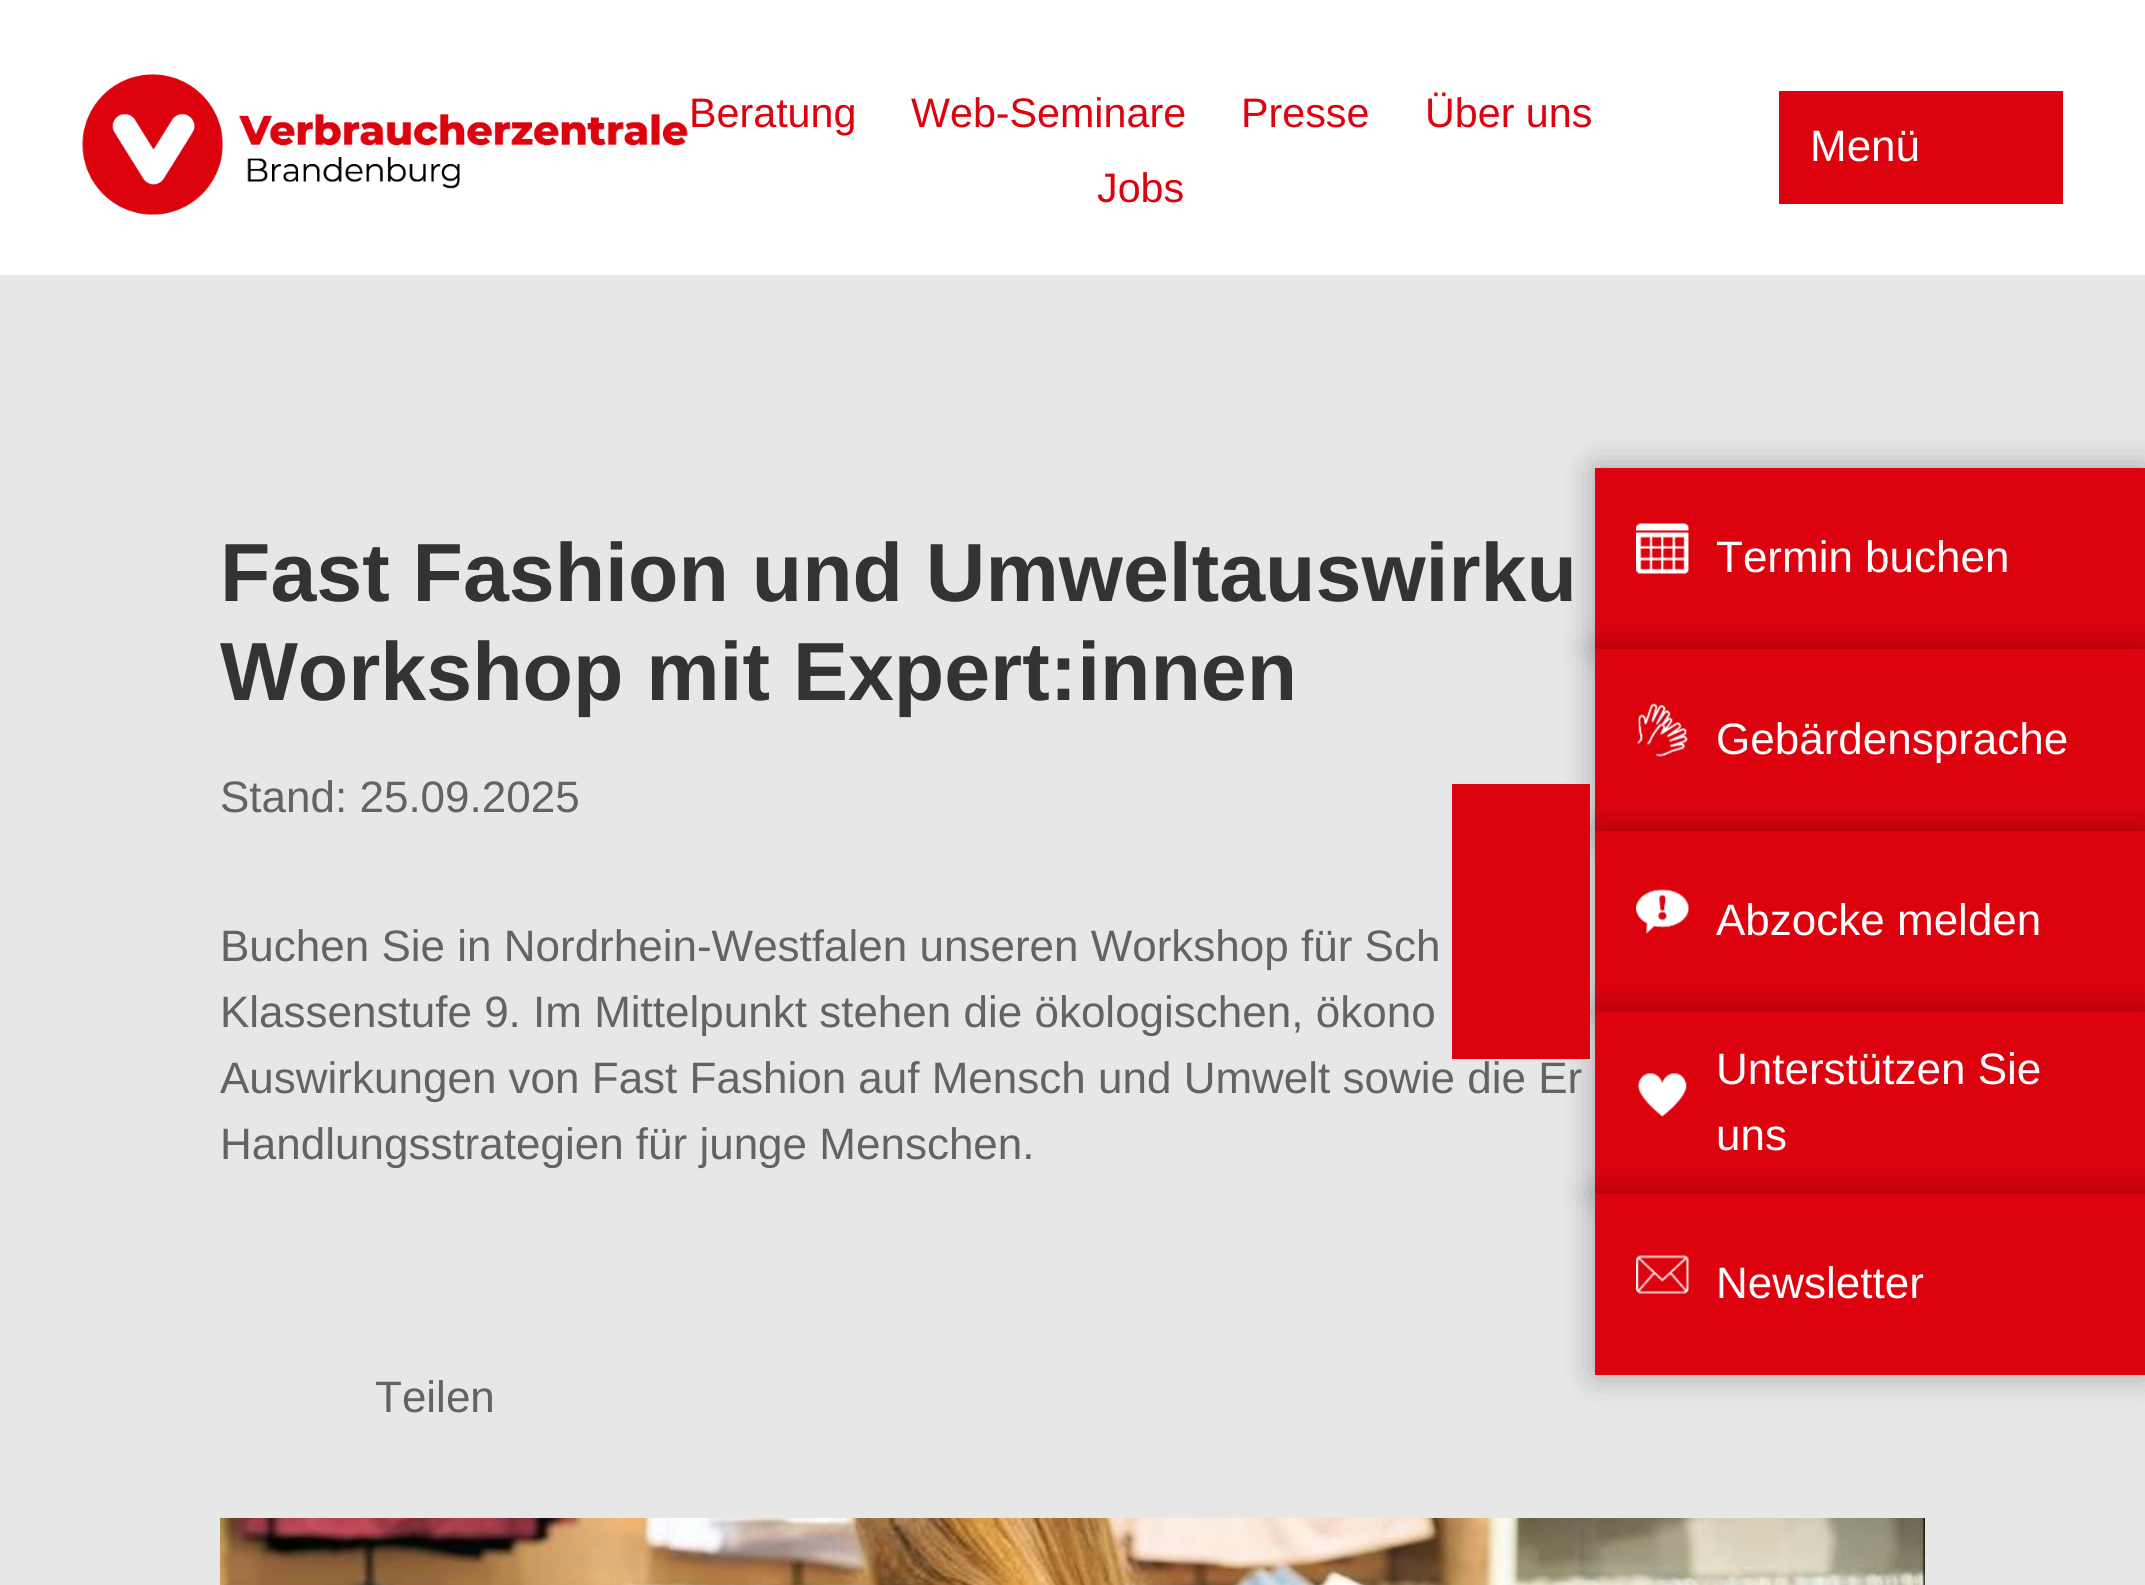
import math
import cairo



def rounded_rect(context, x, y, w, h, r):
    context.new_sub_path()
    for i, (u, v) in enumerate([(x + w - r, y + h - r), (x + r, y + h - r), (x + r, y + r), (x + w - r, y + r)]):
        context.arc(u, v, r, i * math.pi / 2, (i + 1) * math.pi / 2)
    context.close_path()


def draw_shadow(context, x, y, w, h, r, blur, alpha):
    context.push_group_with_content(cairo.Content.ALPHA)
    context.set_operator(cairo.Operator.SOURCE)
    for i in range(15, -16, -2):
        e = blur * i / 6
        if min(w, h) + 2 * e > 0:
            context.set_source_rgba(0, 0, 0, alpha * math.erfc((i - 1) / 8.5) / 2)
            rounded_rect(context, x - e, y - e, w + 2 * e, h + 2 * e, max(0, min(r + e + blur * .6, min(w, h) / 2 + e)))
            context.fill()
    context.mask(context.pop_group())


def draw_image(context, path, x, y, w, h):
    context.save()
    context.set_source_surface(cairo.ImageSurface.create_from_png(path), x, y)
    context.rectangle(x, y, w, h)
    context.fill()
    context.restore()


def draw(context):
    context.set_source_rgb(1, 1, 1)
    context.paint()
    draw_image(context, "images/1.png", 82, 74, 606, 141)
    context.set_source_rgb(220 / 255, 2 / 255, 14 / 255)
    context.rectangle(1779, 91, 284, 113)
    context.fill()
    context.set_source_rgb(231 / 255, 231 / 255, 231 / 255)
    context.rectangle(0, 275, 2145, 1310)
    context.fill()
    draw_image(context, "images/2.png", 220, 1518, 1705, 67)
    context.set_source_rgb(0, 0, 0)
    draw_shadow(context, 1595, 468, 550, 181, 0, 16.5, 0.3)
    context.set_source_rgb(220 / 255, 2 / 255, 14 / 255)
    context.rectangle(1595, 468, 550, 181)
    context.fill()
    context.set_source_rgb(0, 0, 0)
    draw_shadow(context, 1595, 649, 550, 182, 0, 16.5, 0.3)
    context.set_source_rgb(220 / 255, 2 / 255, 14 / 255)
    context.rectangle(1595, 649, 550, 182)
    context.fill()
    context.set_source_rgb(0, 0, 0)
    draw_shadow(context, 1595, 831, 550, 181, 0, 16.5, 0.3)
    context.set_source_rgb(220 / 255, 2 / 255, 14 / 255)
    context.rectangle(1595, 831, 550, 181)
    context.fill()
    context.set_source_rgb(0, 0, 0)
    draw_shadow(context, 1595, 1012, 550, 182, 0, 16.5, 0.3)
    context.set_source_rgb(220 / 255, 2 / 255, 14 / 255)
    context.rectangle(1452, 784, 138, 275)
    context.fill()
    draw_image(context, "images/3.png", 1636, 523, 53, 51)
    draw_image(context, "images/4.png", 1637, 703, 51, 54)
    draw_image(context, "images/5.png", 1636, 889, 53, 45)
    context.rectangle(1595, 1012, 550, 182)
    context.fill()
    draw_image(context, "images/6.png", 1638, 1073, 49, 44)
    context.set_source_rgb(0, 0, 0)
    draw_shadow(context, 1595, 1194, 550, 181, 0, 16.5, 0.3)
    context.set_source_rgb(220 / 255, 2 / 255, 14 / 255)
    context.rectangle(1595, 1194, 550, 181)
    context.fill()
    draw_image(context, "images/7.png", 1636, 1255, 53, 39)
    context.select_font_face("Liberation Sans")
    context.set_font_size(41.25)
    context.move_to(689, 127)
    context.show_text("Beratung")
    context.move_to(911, 127)
    context.show_text("Web-Seminare")
    context.move_to(1241, 127)
    context.show_text("Presse")
    context.move_to(1425, 127)
    context.show_text("Über uns")
    context.move_to(1097, 202)
    context.show_text("Jobs")
    context.set_font_size(44)
    context.set_source_rgb(1, 1, 1)
    context.move_to(1810, 161)
    context.show_text("Menü")
    context.select_font_face("Liberation Sans", cairo.FontSlant.NORMAL, cairo.FontWeight.BOLD)
    context.set_font_size(82.5)
    context.set_source_rgb(51 / 255, 51 / 255, 51 / 255)
    context.move_to(220, 601)
    context.show_text("Fast Fashion und Umweltauswirku")
    context.move_to(220, 700)
    context.show_text("Workshop mit Expert:innen")
    context.select_font_face("Liberation Sans")
    context.set_font_size(44)
    context.set_source_rgb(99 / 255, 99 / 255, 99 / 255)
    context.move_to(220, 812)
    context.show_text("Stand: 25.09.2025")
    context.move_to(220, 961)
    context.show_text("Buchen Sie in Nordrhein-Westfalen unseren Workshop für Sch")
    context.move_to(220, 1027)
    context.show_text("Klassenstufe 9. Im Mittelpunkt stehen die ökologischen, ökono")
    context.move_to(220, 1093)
    context.show_text("Auswirkungen von Fast Fashion auf Mensch und Umwelt sowie die Er")
    context.move_to(220, 1159)
    context.show_text("Handlungsstrategien für junge Menschen.")
    context.move_to(375, 1412)
    context.show_text("Teilen")
    context.set_source_rgb(1, 1, 1)
    context.move_to(1716, 572)
    context.show_text("Termin buchen")
    context.move_to(1716, 754)
    context.show_text("Gebärdensprache")
    context.move_to(1716, 935)
    context.show_text("Abzocke melden")
    context.move_to(1716, 1084)
    context.show_text("Unterstützen Sie")
    context.move_to(1716, 1150)
    context.show_text("uns")
    context.move_to(1716, 1298)
    context.show_text("Newsletter")


surface = cairo.ImageSurface(cairo.Format.RGB24, 2145, 1585)
context = cairo.Context(surface)
options = cairo.FontOptions()
options.set_hint_metrics(cairo.HintMetrics.OFF)
options.set_hint_style(cairo.HintStyle.NONE)
context.set_font_options(options)
context.set_miter_limit(4)
draw(context)
surface.write_to_png("out.png")
